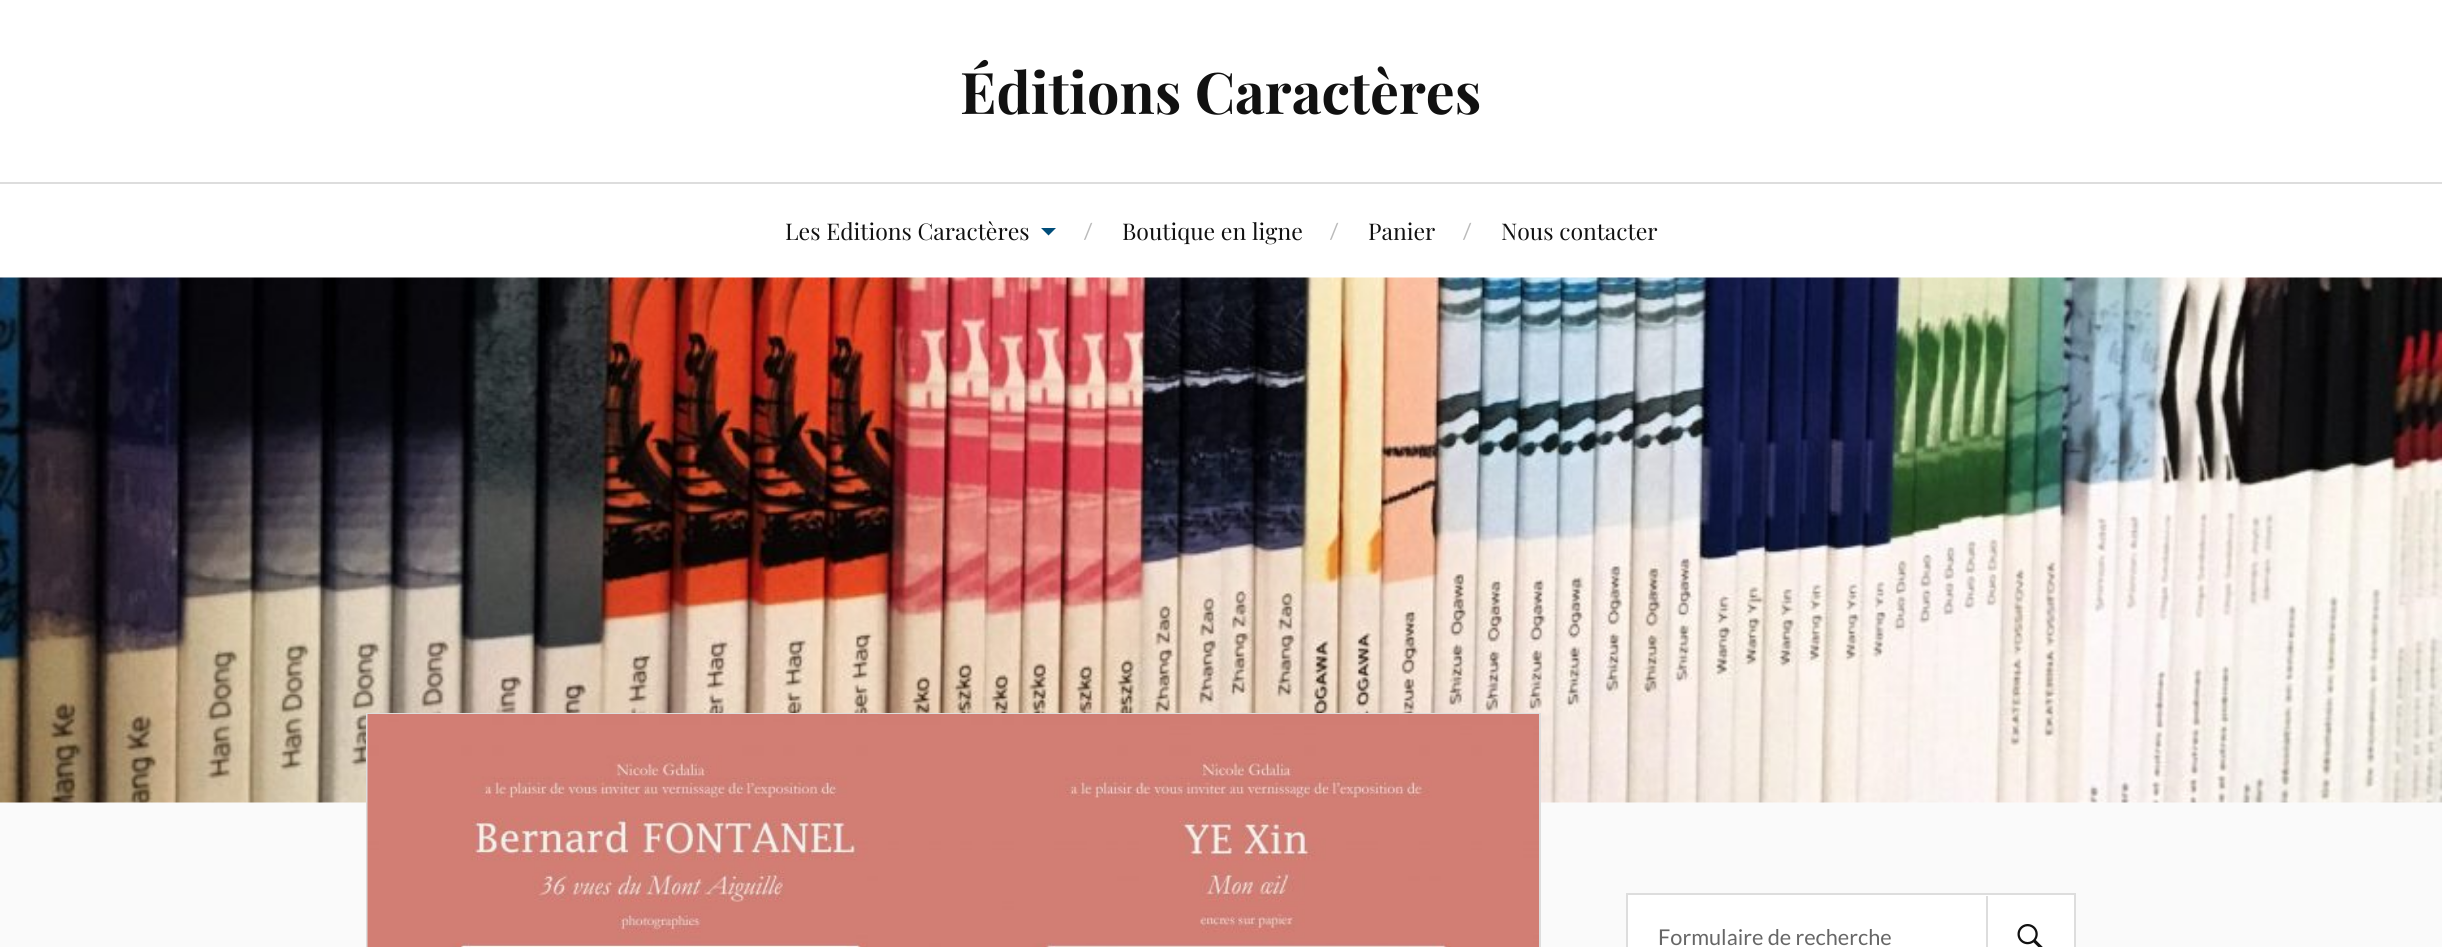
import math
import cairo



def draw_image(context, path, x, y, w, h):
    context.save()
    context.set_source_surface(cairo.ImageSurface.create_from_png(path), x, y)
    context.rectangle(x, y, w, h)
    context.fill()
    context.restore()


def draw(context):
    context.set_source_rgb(250 / 255, 250 / 255, 250 / 255)
    context.paint()
    context.set_source_rgb(1, 1, 1)
    context.rectangle(0, 0, 2442, 182)
    context.fill()
    context.rectangle(0, 184, 2442, 94)
    context.fill()
    context.set_source_rgb(221 / 255, 221 / 255, 221 / 255)
    context.rectangle(0, 182, 2442, 2)
    context.fill()
    context.set_source_rgb(0, 77 / 255, 122 / 255)
    context.new_path()
    context.move_to(1041, 228)
    context.line_to(1056, 228)
    context.line_to(1048.5, 235.5)
    context.close_path()
    context.fill()
    draw_image(context, "images/1.png", 0, 277, 2442, 526)
    context.rectangle(367, 714, 1173, 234)
    context.set_source_rgb(221 / 255, 221 / 255, 221 / 255)
    context.stroke()
    draw_image(context, "images/2.png", 367, 714, 1172, 233)
    context.set_source_rgb(1, 1, 1)
    context.rectangle(1627, 894, 448, 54)
    context.fill_preserve()
    context.set_source_rgb(221 / 255, 221 / 255, 221 / 255)
    context.stroke()
    context.rectangle(1986, 896, 2, 51)
    context.fill()
    draw_image(context, "images/3.png", 2017, 924, 26, 23)
    context.select_font_face("Playfair Display", cairo.FontSlant.NORMAL, cairo.FontWeight.BOLD)
    context.set_font_size(57.4)
    context.set_source_rgb(17 / 255, 17 / 255, 17 / 255)
    context.move_to(960, 114)
    context.show_text("Éditions Caractères")
    context.select_font_face("Playfair Display")
    context.set_font_size(23)
    context.move_to(785, 240)
    context.show_text("Les Editions Caractères")
    context.select_font_face("Lato")
    context.set_font_size(22)
    context.set_source_rgb(187 / 255, 187 / 255, 187 / 255)
    context.move_to(1084, 239)
    context.show_text("/")
    context.select_font_face("Playfair Display")
    context.set_font_size(23)
    context.set_source_rgb(17 / 255, 17 / 255, 17 / 255)
    context.move_to(1122, 240)
    context.show_text("Boutique en ligne")
    context.select_font_face("Lato")
    context.set_font_size(22)
    context.set_source_rgb(187 / 255, 187 / 255, 187 / 255)
    context.move_to(1330, 239)
    context.show_text("/")
    context.select_font_face("Playfair Display")
    context.set_font_size(23)
    context.set_source_rgb(17 / 255, 17 / 255, 17 / 255)
    context.move_to(1368, 240)
    context.show_text("Panier")
    context.select_font_face("Lato")
    context.set_font_size(22)
    context.set_source_rgb(187 / 255, 187 / 255, 187 / 255)
    context.move_to(1463, 239)
    context.show_text("/")
    context.select_font_face("Playfair Display")
    context.set_font_size(23)
    context.set_source_rgb(17 / 255, 17 / 255, 17 / 255)
    context.move_to(1501, 240)
    context.show_text("Nous contacter")
    context.select_font_face("Lato")
    context.set_font_size(21.75)
    context.set_source_rgb(102 / 255, 102 / 255, 102 / 255)
    context.move_to(1658, 945)
    context.show_text("Formulaire de recherche")


surface = cairo.ImageSurface(cairo.Format.RGB24, 2442, 947)
context = cairo.Context(surface)
options = cairo.FontOptions()
options.set_hint_metrics(cairo.HintMetrics.OFF)
options.set_hint_style(cairo.HintStyle.NONE)
context.set_font_options(options)
context.set_miter_limit(4)
draw(context)
surface.write_to_png("out.png")
